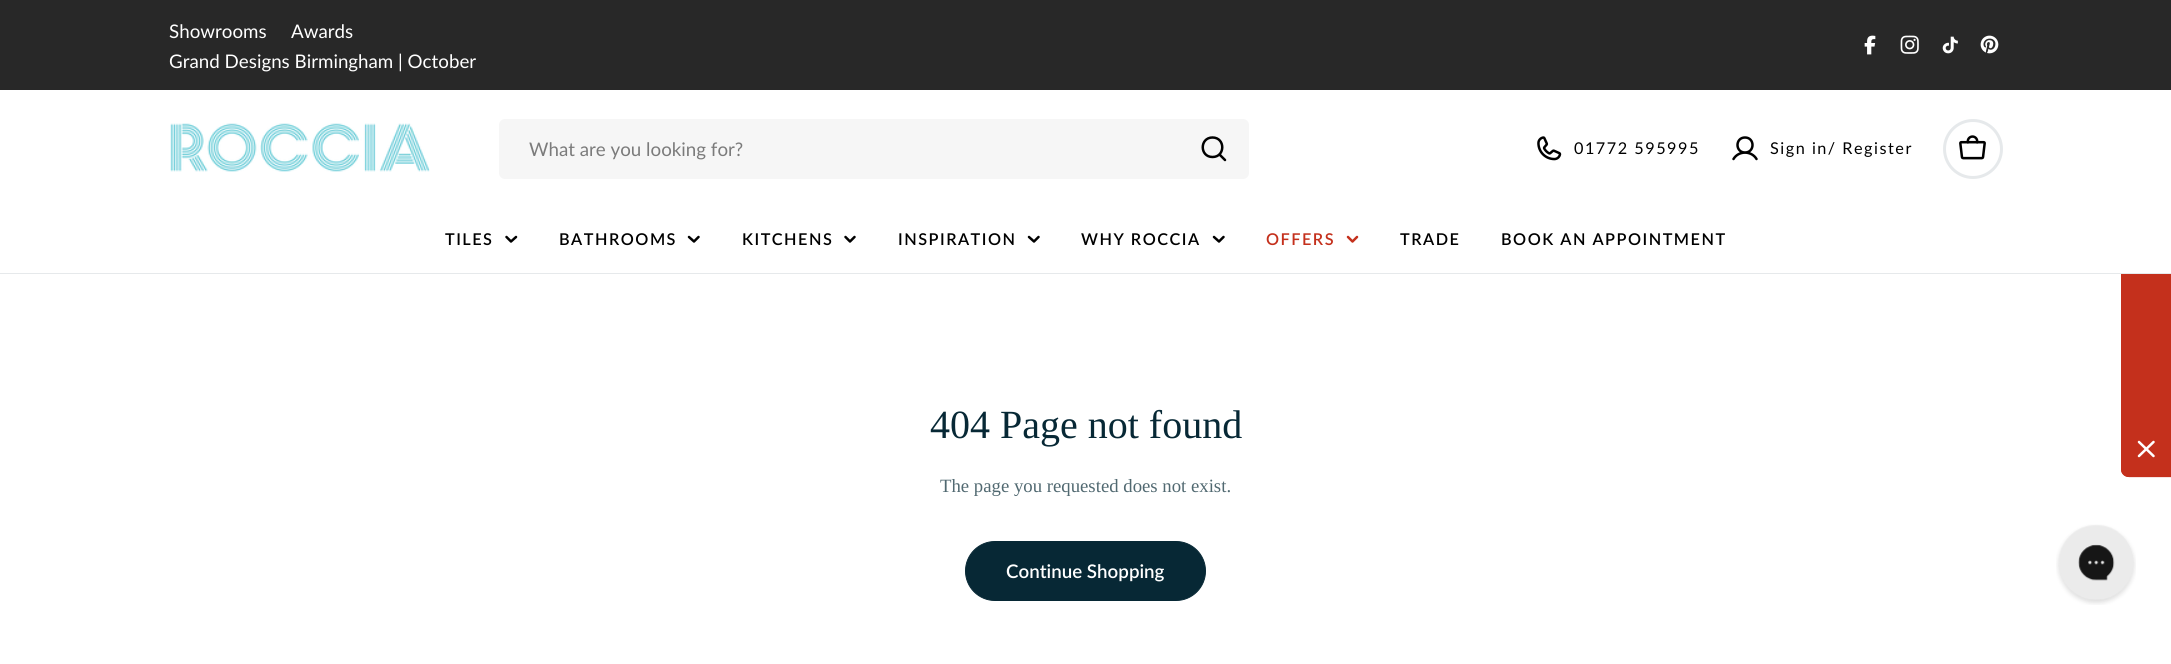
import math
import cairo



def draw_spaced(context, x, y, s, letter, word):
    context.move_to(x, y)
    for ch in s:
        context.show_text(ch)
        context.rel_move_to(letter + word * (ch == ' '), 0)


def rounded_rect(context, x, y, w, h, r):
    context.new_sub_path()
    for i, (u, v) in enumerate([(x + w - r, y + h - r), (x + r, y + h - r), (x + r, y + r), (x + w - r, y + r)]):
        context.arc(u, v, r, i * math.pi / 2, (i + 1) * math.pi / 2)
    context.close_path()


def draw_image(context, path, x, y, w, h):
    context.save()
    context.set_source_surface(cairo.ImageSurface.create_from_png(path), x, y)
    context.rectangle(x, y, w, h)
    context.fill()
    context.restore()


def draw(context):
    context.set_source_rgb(1, 1, 1)
    context.paint()
    context.set_source_rgb(40 / 255, 40 / 255, 40 / 255)
    context.rectangle(0, 0, 2171, 90)
    context.fill()
    draw_image(context, "images/1.png", 1864, 35, 12, 20)
    draw_image(context, "images/2.png", 1900, 35, 19, 19)
    draw_image(context, "images/3.png", 1942, 36, 16, 18)
    draw_image(context, "images/4.png", 1980, 35, 19, 19)
    draw_image(context, "images/5.png", 170, 123, 260, 49)
    context.set_source_rgb(246 / 255, 246 / 255, 246 / 255)
    rounded_rect(context, 499, 119, 750, 60, 6)
    context.fill()
    context.new_path()
    context.move_to(1212.5, 157)
    context.curve_to(1225.5, 157, 1225.5, 137.5, 1212.5, 137.5)
    context.curve_to(1199.5, 137.5, 1199.5, 157, 1212.5, 157)
    context.close_path()
    context.move_to(1219.5, 154.5)
    context.line_to(1225, 160)
    context.set_source_rgb(0, 0, 0)
    context.set_line_width(2.5)
    context.set_line_cap(cairo.LineCap.ROUND)
    context.set_line_join(cairo.LineJoin.ROUND)
    context.stroke()
    draw_image(context, "images/6.png", 1537, 136, 25, 25)
    context.new_path()
    context.move_to(1745, 152.5)
    context.curve_to(1755, 152.5, 1755, 137.5, 1745, 137.5)
    context.curve_to(1735, 137.5, 1735, 152.5, 1745, 152.5)
    context.close_path()
    context.move_to(1733.5, 159)
    context.curve_to(1738.5, 150.5, 1751.5, 150.5, 1756.5, 159)
    context.stroke()
    context.arc(1973, 149, 28.5, 0, 2 * math.pi)
    context.set_source_rgb(230 / 255, 233 / 255, 235 / 255)
    context.set_line_width(3)
    context.set_line_cap(cairo.LineCap.BUTT)
    context.set_line_join(cairo.LineJoin.MITER)
    context.stroke()
    draw_image(context, "images/7.png", 1959, 135, 27, 25)
    context.set_source_rgb(196 / 255, 48 / 255, 28 / 255)
    context.new_path()
    context.move_to(2121, 470)
    context.line_to(2121, 195)
    context.curve_to(2121, 191, 2125, 188, 2129, 188)
    context.line_to(2171, 188)
    context.line_to(2171, 477)
    context.line_to(2129, 477)
    context.curve_to(2125, 477, 2121, 474, 2121, 470)
    context.close_path()
    context.fill()
    context.new_path()
    context.move_to(2122, 470)
    context.line_to(2122, 195)
    context.curve_to(2122, 191.5, 2125, 188.5, 2129, 188.5)
    context.line_to(2170.5, 188.5)
    context.line_to(2170.5, 476.5)
    context.line_to(2129, 476.5)
    context.curve_to(2125, 476.5, 2122, 473.5, 2122, 470)
    context.close_path()
    context.set_line_width(1.2)
    context.stroke()
    context.set_source_rgb(1, 1, 1)
    context.rectangle(2121, 187, 50, 86)
    context.fill()
    context.set_source_rgb(230 / 255, 233 / 255, 235 / 255)
    context.rectangle(0, 273, 2171, 1)
    context.fill()
    context.new_path()
    context.move_to(516, 237)
    context.line_to(511, 241.5)
    context.line_to(506.5, 237)
    context.set_source_rgb(0, 0, 0)
    context.set_line_width(2.5)
    context.set_line_cap(cairo.LineCap.ROUND)
    context.set_line_join(cairo.LineJoin.ROUND)
    context.stroke()
    context.new_path()
    context.move_to(698.5, 237)
    context.line_to(694, 241.5)
    context.line_to(689, 237)
    context.stroke()
    context.new_path()
    context.move_to(854.5, 237)
    context.line_to(850, 241.5)
    context.line_to(845.5, 237)
    context.stroke()
    context.new_path()
    context.move_to(1038.5, 237)
    context.line_to(1034, 241.5)
    context.line_to(1029, 237)
    context.stroke()
    context.new_path()
    context.move_to(1223.5, 237)
    context.line_to(1219, 241.5)
    context.line_to(1214, 237)
    context.stroke()
    context.new_path()
    context.move_to(1357, 237)
    context.line_to(1352.5, 241.5)
    context.line_to(1348, 237)
    context.set_source_rgb(196 / 255, 48 / 255, 28 / 255)
    context.stroke()
    context.set_source_rgb(7 / 255, 40 / 255, 53 / 255)
    rounded_rect(context, 965.5, 541.5, 240, 59, 29.5)
    context.fill_preserve()
    context.set_line_width(1)
    context.set_line_cap(cairo.LineCap.BUTT)
    context.set_line_join(cairo.LineJoin.MITER)
    context.stroke()
    context.new_path()
    context.move_to(2153.5, 456)
    context.line_to(2139, 442)
    context.move_to(2139, 456)
    context.line_to(2153.5, 442)
    context.set_source_rgb(1, 1, 1)
    context.set_line_width(2.5)
    context.set_line_cap(cairo.LineCap.ROUND)
    context.set_line_join(cairo.LineJoin.ROUND)
    context.stroke()
    draw_image(context, "images/8.png", 2056, 524, 80, 81)
    context.select_font_face("Lato")
    context.set_font_size(18.75)
    context.move_to(169, 38)
    context.show_text("Showrooms")
    context.move_to(291, 38)
    context.show_text("Awards")
    context.move_to(169, 68)
    context.show_text("Grand Designs Birmingham | October")
    context.set_source_rgb(123 / 255, 123 / 255, 123 / 255)
    context.move_to(529, 156)
    context.show_text("What are you looking for?")
    context.set_font_size(16.25)
    context.set_source_rgb(0, 0, 0)
    draw_spaced(context, 1574, 154, "01772 595995", 1.5, 0)
    draw_spaced(context, 1770, 154, "Sign in/ Register", 1.5, 0)
    context.select_font_face("Lato SemiBold")
    draw_spaced(context, 445, 245, "TILES", 1.5, 0)
    draw_spaced(context, 559, 245, "BATHROOMS", 1.5, 0)
    draw_spaced(context, 742, 245, "KITCHENS", 1.5, 0)
    draw_spaced(context, 898, 245, "INSPIRATION", 1.5, 0)
    draw_spaced(context, 1081, 245, "WHY ROCCIA", 1.5, 0)
    context.set_source_rgb(196 / 255, 48 / 255, 28 / 255)
    draw_spaced(context, 1266, 245, "OFFERS", 1.5, 0)
    context.set_source_rgb(0, 0, 0)
    draw_spaced(context, 1400, 245, "TRADE", 1.5, 0)
    draw_spaced(context, 1501, 245, "BOOK AN APPOINTMENT", 1.5, 0)
    context.select_font_face("Liberation Serif")
    context.set_font_size(40)
    context.set_source_rgb(7 / 255, 40 / 255, 53 / 255)
    context.move_to(930, 438)
    context.show_text("404 Page not found")
    context.set_font_size(18.75)
    context.set_source_rgb(81 / 255, 105 / 255, 113 / 255)
    context.move_to(940, 492)
    context.show_text("The page you requested does not exist.")
    context.select_font_face("Lato SemiBold")
    context.set_source_rgb(1, 1, 1)
    context.move_to(1006, 578)
    context.show_text("Continue Shopping")


surface = cairo.ImageSurface(cairo.Format.RGB24, 2171, 664)
context = cairo.Context(surface)
options = cairo.FontOptions()
options.set_hint_metrics(cairo.HintMetrics.OFF)
options.set_hint_style(cairo.HintStyle.NONE)
context.set_font_options(options)
context.set_miter_limit(4)
draw(context)
surface.write_to_png("out.png")
